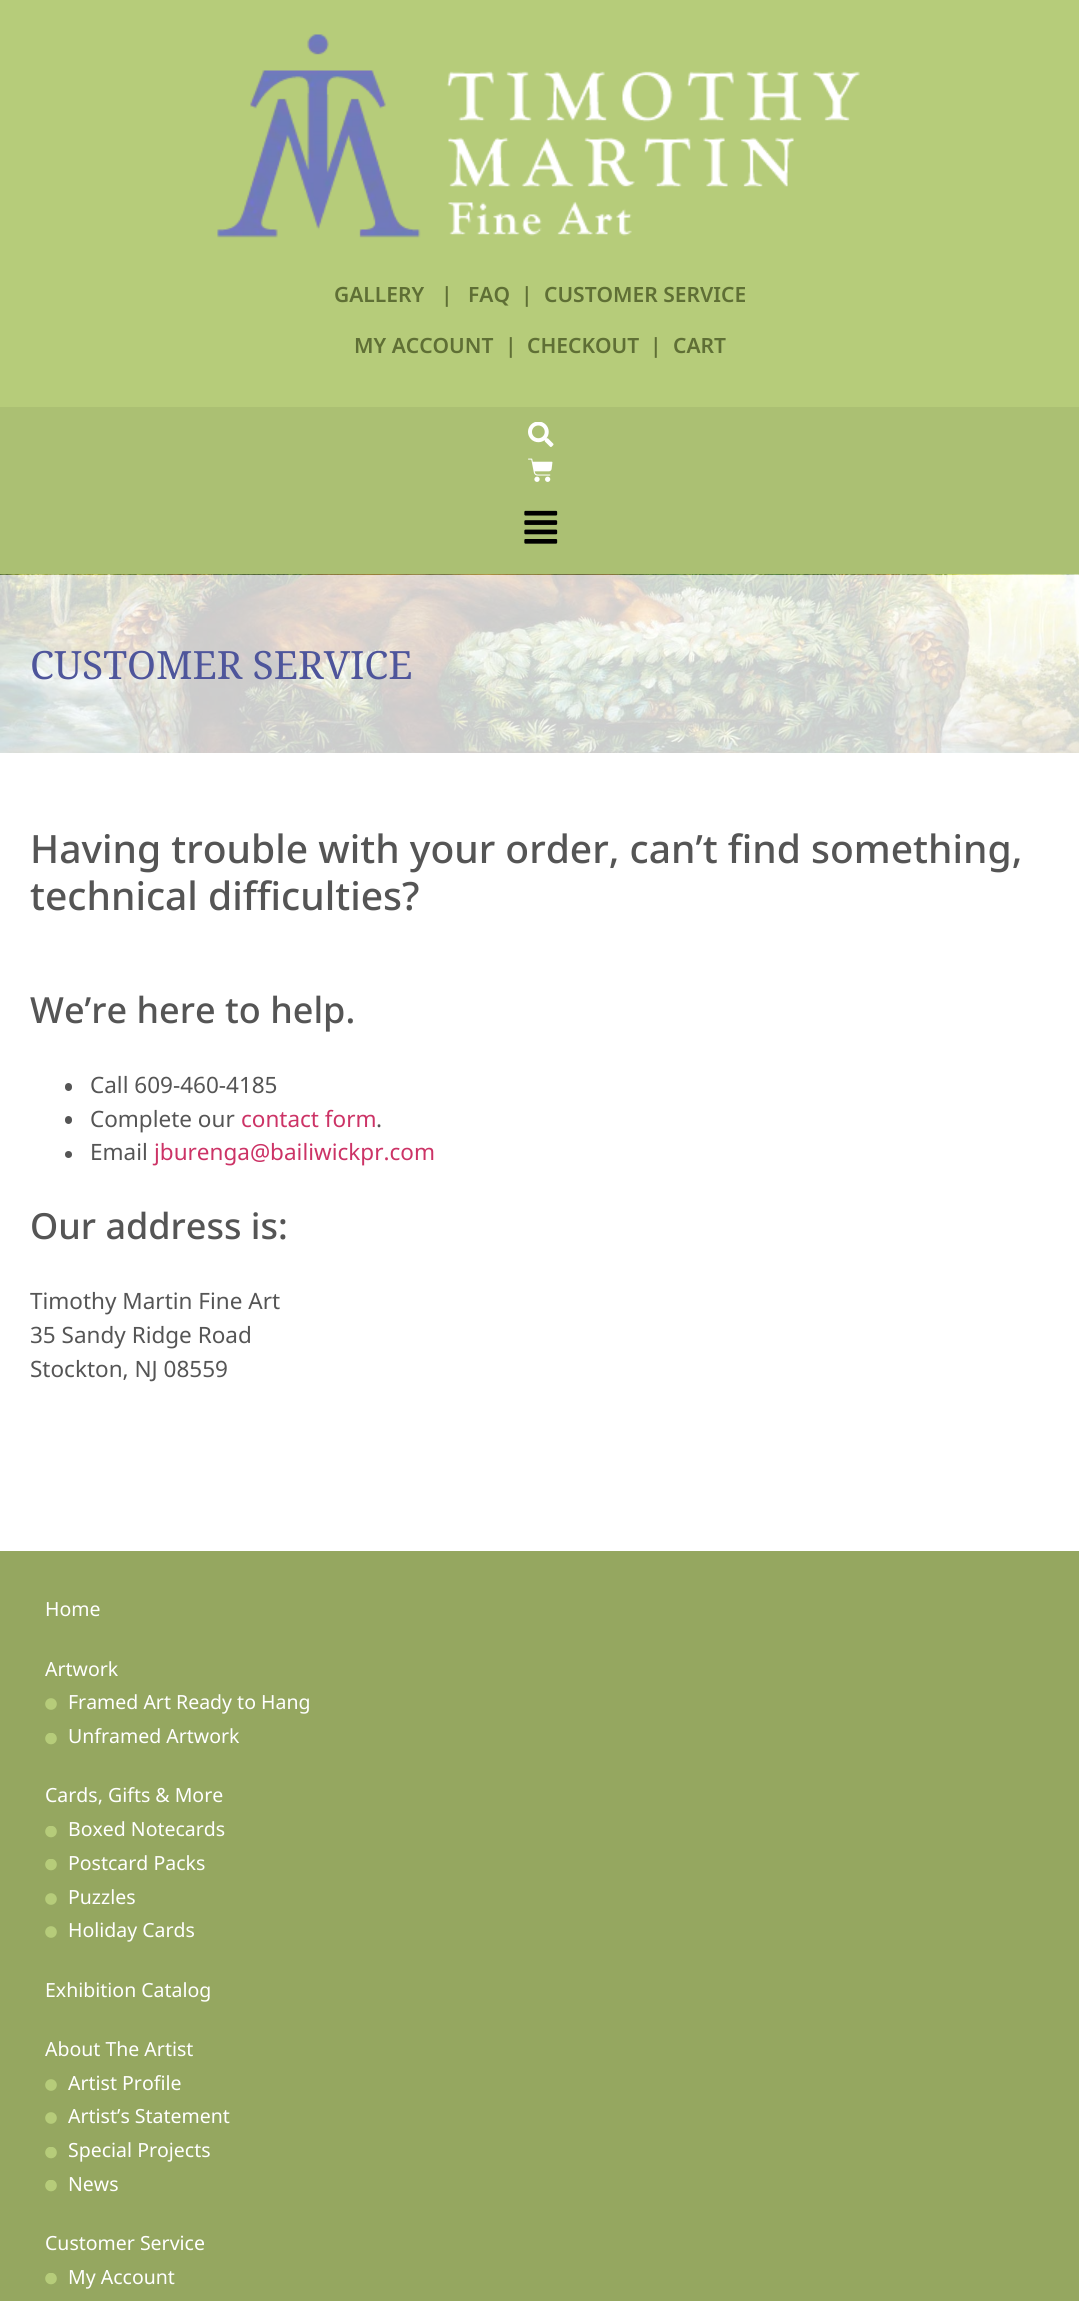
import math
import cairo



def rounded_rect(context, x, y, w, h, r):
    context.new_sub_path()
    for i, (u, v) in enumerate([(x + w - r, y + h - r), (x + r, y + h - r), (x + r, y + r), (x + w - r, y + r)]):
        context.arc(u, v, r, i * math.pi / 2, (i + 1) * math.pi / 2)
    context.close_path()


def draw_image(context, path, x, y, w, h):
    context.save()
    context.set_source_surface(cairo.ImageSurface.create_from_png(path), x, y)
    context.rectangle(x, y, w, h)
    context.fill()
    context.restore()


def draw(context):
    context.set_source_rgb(1, 1, 1)
    context.paint()
    context.set_source_rgb(182 / 255, 204 / 255, 122 / 255)
    context.rectangle(0, 0, 1079, 407)
    context.fill()
    draw_image(context, "images/1.png", 217, 34, 643, 204)
    context.set_source_rgb(171 / 255, 192 / 255, 115 / 255)
    context.rectangle(0, 407, 1079, 168)
    context.fill()
    draw_image(context, "images/2.png", 528, 422, 26, 25)
    draw_image(context, "images/3.png", 528, 458, 25, 24)
    draw_image(context, "images/4.png", 524, 510, 34, 34)
    draw_image(context, "images/5.png", 0, 574, 1079, 179)
    context.set_source_rgb(85 / 255, 85 / 255, 85 / 255)
    rounded_rect(context, 65, 1083, 7, 8, 3.5)
    context.fill()
    rounded_rect(context, 65, 1116, 7, 8, 3.5)
    context.fill()
    context.arc(68.5, 1154.5, 3.5, 0, 2 * math.pi)
    context.fill()
    context.set_source_rgb(149 / 255, 167 / 255, 96 / 255)
    context.rectangle(0, 1551, 1079, 750)
    context.fill()
    draw_image(context, "images/6.png", 45, 1698, 12, 12)
    draw_image(context, "images/7.png", 45, 1733, 12, 12)
    draw_image(context, "images/7.png", 45, 1826, 12, 12)
    draw_image(context, "images/7.png", 45, 1859, 12, 12)
    draw_image(context, "images/6.png", 45, 1893, 12, 12)
    draw_image(context, "images/6.png", 45, 1926, 12, 12)
    draw_image(context, "images/6.png", 45, 2079, 12, 12)
    draw_image(context, "images/6.png", 45, 2112, 12, 12)
    draw_image(context, "images/7.png", 45, 2147, 12, 12)
    draw_image(context, "images/7.png", 45, 2180, 12, 12)
    draw_image(context, "images/7.png", 45, 2273, 12, 12)
    context.select_font_face("Noto Sans SemiBold")
    context.set_font_size(21)
    context.set_source_rgb(95 / 255, 111 / 255, 53 / 255)
    context.move_to(334, 302)
    context.show_text("GALLERY")
    context.move_to(441, 302)
    context.show_text("|")
    context.move_to(468, 302)
    context.show_text("FAQ")
    context.move_to(521, 302)
    context.show_text("|")
    context.move_to(544, 302)
    context.show_text("CUSTOMER SERVICE")
    context.move_to(354, 353)
    context.show_text("MY ACCOUNT")
    context.move_to(505, 353)
    context.show_text("|")
    context.move_to(527, 353)
    context.show_text("CHECKOUT")
    context.move_to(650, 353)
    context.show_text("|")
    context.move_to(673, 353)
    context.show_text("CART")
    context.select_font_face("Noto Serif")
    context.set_font_size(39)
    context.set_source_rgb(78 / 255, 85 / 255, 155 / 255)
    context.move_to(30, 679)
    context.show_text("CUSTOMER SERVICE")
    context.select_font_face("Noto Sans Medium")
    context.set_source_rgb(85 / 255, 85 / 255, 85 / 255)
    context.move_to(30, 863)
    context.show_text("Having trouble with your order, can’t find something,")
    context.move_to(30, 910)
    context.show_text("technical difficulties?")
    context.set_font_size(36)
    context.move_to(30, 1023)
    context.show_text("We’re here to help.")
    context.select_font_face("Noto Sans")
    context.set_font_size(22.5)
    context.move_to(90, 1093)
    context.show_text("Call 609-460-4185")
    context.move_to(90, 1127)
    context.show_text("Complete our")
    context.set_source_rgb(204 / 255, 51 / 255, 102 / 255)
    context.move_to(241, 1127)
    context.show_text("contact form")
    context.set_source_rgb(85 / 255, 85 / 255, 85 / 255)
    context.move_to(376, 1127)
    context.show_text(".")
    context.move_to(90, 1160)
    context.show_text("Email")
    context.set_source_rgb(204 / 255, 51 / 255, 102 / 255)
    context.move_to(154, 1160)
    context.show_text("jburenga@bailiwickpr.com")
    context.select_font_face("Noto Sans Medium")
    context.set_font_size(36)
    context.set_source_rgb(85 / 255, 85 / 255, 85 / 255)
    context.move_to(30, 1239)
    context.show_text("Our address is:")
    context.select_font_face("Noto Sans")
    context.set_font_size(22.5)
    context.move_to(30, 1309)
    context.show_text("Timothy Martin Fine Art")
    context.move_to(30, 1343)
    context.show_text("35 Sandy Ridge Road")
    context.move_to(30, 1377)
    context.show_text("Stockton, NJ 08559")
    context.set_font_size(19.5)
    context.set_source_rgb(1, 1, 1)
    context.move_to(45, 1616)
    context.show_text("Home")
    context.move_to(45, 1676)
    context.show_text("Artwork")
    context.move_to(68, 1709)
    context.show_text("Framed Art Ready to Hang")
    context.move_to(68, 1743)
    context.show_text("Unframed Artwork")
    context.move_to(45, 1802)
    context.show_text("Cards, Gifts & More")
    context.move_to(68, 1836)
    context.show_text("Boxed Notecards")
    context.move_to(68, 1870)
    context.show_text("Postcard Packs")
    context.move_to(68, 1904)
    context.show_text("Puzzles")
    context.move_to(68, 1937)
    context.show_text("Holiday Cards")
    context.move_to(45, 1997)
    context.show_text("Exhibition Catalog")
    context.move_to(45, 2056)
    context.show_text("About The Artist")
    context.move_to(68, 2090)
    context.show_text("Artist Profile")
    context.move_to(68, 2123)
    context.show_text("Artist’s Statement")
    context.move_to(68, 2157)
    context.show_text("Special Projects")
    context.move_to(68, 2191)
    context.show_text("News")
    context.move_to(45, 2250)
    context.show_text("Customer Service")
    context.move_to(68, 2284)
    context.show_text("My Account")


surface = cairo.ImageSurface(cairo.Format.RGB24, 1079, 2301)
context = cairo.Context(surface)
options = cairo.FontOptions()
options.set_hint_metrics(cairo.HintMetrics.OFF)
options.set_hint_style(cairo.HintStyle.NONE)
context.set_font_options(options)
context.set_miter_limit(4)
draw(context)
surface.write_to_png("out.png")
